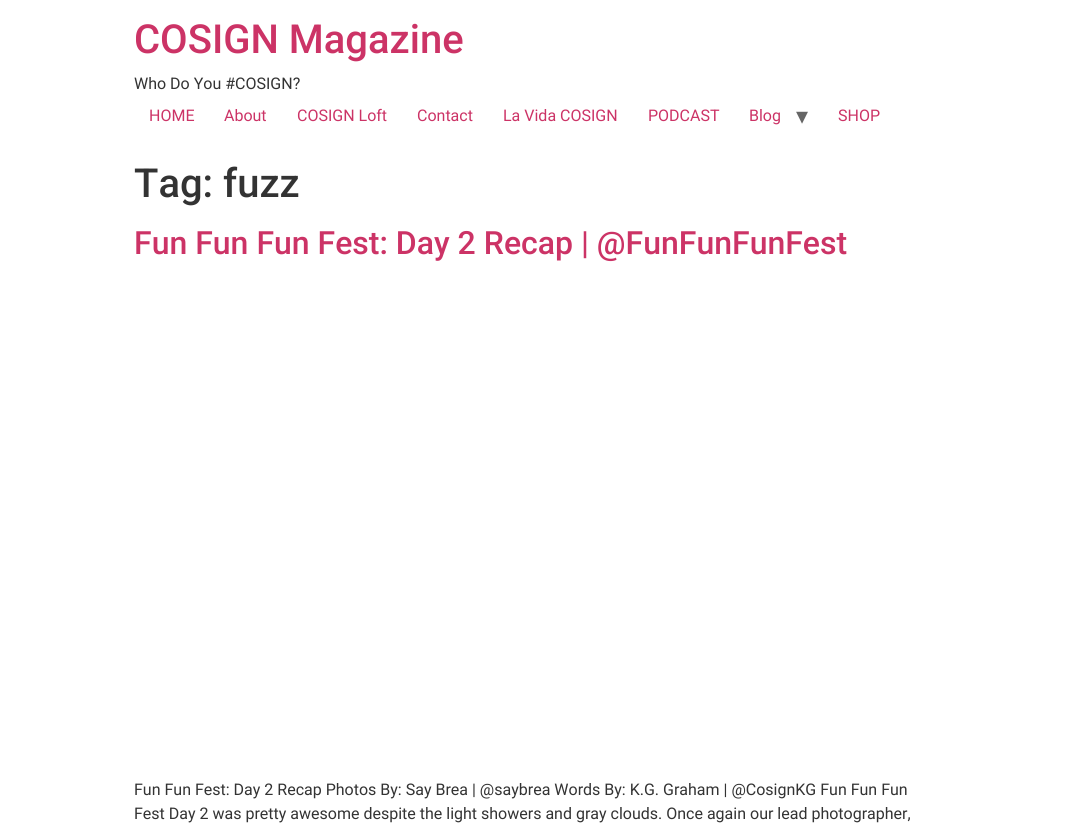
import math
import cairo



def draw(context):
    context.set_source_rgb(1, 1, 1)
    context.paint()
    context.select_font_face("Roboto Medium")
    context.set_font_size(40)
    context.set_source_rgb(204 / 255, 51 / 255, 102 / 255)
    context.move_to(134, 53)
    context.show_text("COSIGN Magazine")
    context.select_font_face("Roboto")
    context.set_font_size(16)
    context.set_source_rgb(51 / 255, 51 / 255, 51 / 255)
    context.move_to(134, 89)
    context.show_text("Who Do You #COSIGN?")
    context.set_source_rgb(204 / 255, 51 / 255, 102 / 255)
    context.move_to(149, 121)
    context.show_text("HOME")
    context.move_to(224, 121)
    context.show_text("About")
    context.move_to(297, 121)
    context.show_text("COSIGN Loft")
    context.move_to(417, 121)
    context.show_text("Contact")
    context.move_to(503, 121)
    context.show_text("La Vida COSIGN")
    context.move_to(648, 121)
    context.show_text("PODCAST")
    context.move_to(749, 121)
    context.show_text("Blog")
    context.select_font_face("DejaVu Sans")
    context.set_font_size(24)
    context.set_source_rgb(102 / 255, 102 / 255, 102 / 255)
    context.move_to(796, 124)
    context.show_text("▾")
    context.select_font_face("Roboto")
    context.set_font_size(16)
    context.set_source_rgb(204 / 255, 51 / 255, 102 / 255)
    context.move_to(838, 121)
    context.show_text("SHOP")
    context.select_font_face("Roboto Medium")
    context.set_font_size(40)
    context.set_source_rgb(51 / 255, 51 / 255, 51 / 255)
    context.move_to(134, 197)
    context.show_text("Tag: fuzz")
    context.set_font_size(32)
    context.set_source_rgb(204 / 255, 51 / 255, 102 / 255)
    context.move_to(134, 254)
    context.show_text("Fun Fun Fun Fest: Day 2 Recap | @FunFunFunFest")
    context.select_font_face("Roboto")
    context.set_font_size(16)
    context.set_source_rgb(51 / 255, 51 / 255, 51 / 255)
    context.move_to(134, 795)
    context.show_text("Fun Fun Fest: Day 2 Recap Photos By: Say Brea | @saybrea Words By: K.G. Graham | @CosignKG Fun Fun Fun")
    context.move_to(134, 819)
    context.show_text("Fest Day 2 was pretty awesome despite the light showers and gray clouds. Once again our lead photographer,")


surface = cairo.ImageSurface(cairo.Format.RGB24, 1068, 833)
context = cairo.Context(surface)
options = cairo.FontOptions()
options.set_hint_metrics(cairo.HintMetrics.OFF)
options.set_hint_style(cairo.HintStyle.NONE)
context.set_font_options(options)
context.set_miter_limit(4)
draw(context)
surface.write_to_png("out.png")
